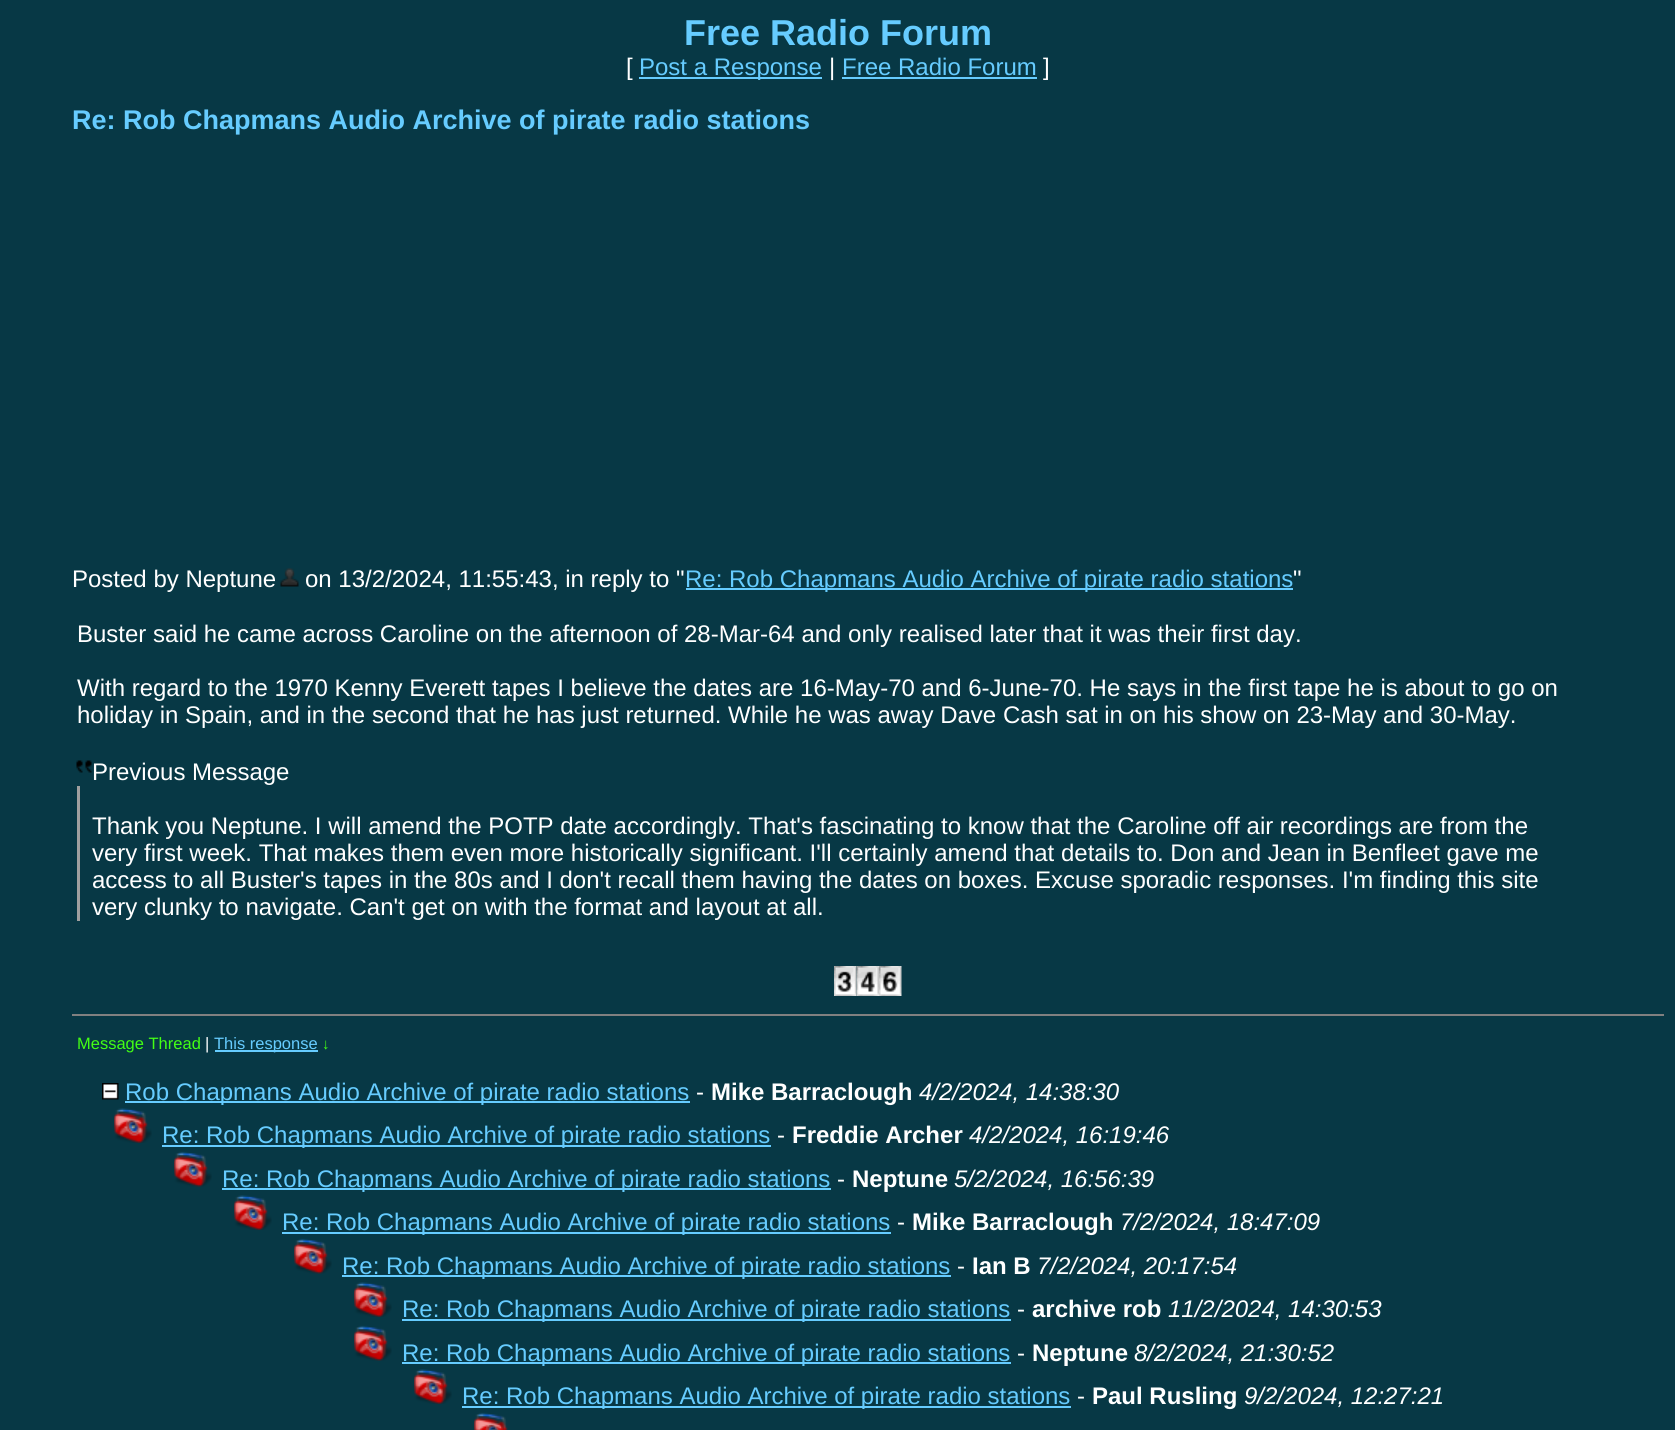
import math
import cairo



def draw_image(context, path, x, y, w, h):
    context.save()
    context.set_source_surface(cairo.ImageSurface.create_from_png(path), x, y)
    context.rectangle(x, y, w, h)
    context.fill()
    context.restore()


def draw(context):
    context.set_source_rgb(7 / 255, 56 / 255, 69 / 255)
    context.paint()
    context.set_source_rgb(102 / 255, 204 / 255, 1)
    context.rectangle(639, 77, 183, 2)
    context.fill()
    context.rectangle(842, 77, 195, 2)
    context.fill()
    draw_image(context, "images/1.png", 280, 568, 19, 19)
    context.rectangle(686, 588, 607, 2)
    context.fill()
    draw_image(context, "images/2.png", 76, 760, 16, 13)
    context.set_source_rgb(159 / 255, 159 / 255, 159 / 255)
    context.rectangle(77, 786, 3, 135)
    context.fill()
    draw_image(context, "images/3.png", 834, 966, 23, 30)
    draw_image(context, "images/4.png", 856, 966, 23, 30)
    draw_image(context, "images/5.png", 879, 966, 23, 30)
    context.set_source_rgb(128 / 255, 128 / 255, 128 / 255)
    context.rectangle(72, 1014, 1592, 2)
    context.fill()
    context.set_source_rgb(102 / 255, 204 / 255, 1)
    context.rectangle(215, 1050, 103, 2)
    context.fill()
    draw_image(context, "images/6.png", 102, 1083, 17, 17)
    context.rectangle(125, 1101, 565, 2)
    context.fill()
    draw_image(context, "images/7.png", 114, 1108, 38, 35)
    context.rectangle(162, 1145, 609, 2)
    context.fill()
    draw_image(context, "images/8.png", 174, 1151, 38, 36)
    context.rectangle(222, 1188, 609, 2)
    context.fill()
    draw_image(context, "images/7.png", 234, 1195, 38, 35)
    context.rectangle(282, 1232, 609, 2)
    context.fill()
    draw_image(context, "images/9.png", 294, 1238, 38, 36)
    context.rectangle(342, 1275, 609, 2)
    context.fill()
    draw_image(context, "images/10.png", 354, 1282, 38, 35)
    context.rectangle(402, 1319, 609, 2)
    context.fill()
    draw_image(context, "images/9.png", 354, 1325, 38, 36)
    context.rectangle(402, 1362, 609, 2)
    context.fill()
    draw_image(context, "images/10.png", 414, 1369, 38, 35)
    context.rectangle(462, 1406, 609, 2)
    context.fill()
    draw_image(context, "images/11.png", 474, 1412, 34, 18)
    context.select_font_face("Liberation Sans", cairo.FontSlant.NORMAL, cairo.FontWeight.BOLD)
    context.set_font_size(36)
    context.move_to(684, 45)
    context.show_text("Free Radio Forum")
    context.select_font_face("Liberation Sans")
    context.set_font_size(24)
    context.set_source_rgb(1, 1, 1)
    context.move_to(626, 75)
    context.show_text("[")
    context.set_source_rgb(102 / 255, 204 / 255, 1)
    context.move_to(639, 75)
    context.show_text("Post a Response")
    context.set_source_rgb(1, 1, 1)
    context.move_to(829, 75)
    context.show_text("|")
    context.set_source_rgb(102 / 255, 204 / 255, 1)
    context.move_to(842, 75)
    context.show_text("Free Radio Forum")
    context.set_source_rgb(1, 1, 1)
    context.move_to(1043, 75)
    context.show_text("]")
    context.select_font_face("Liberation Sans", cairo.FontSlant.NORMAL, cairo.FontWeight.BOLD)
    context.set_font_size(27)
    context.set_source_rgb(102 / 255, 204 / 255, 1)
    context.move_to(72, 129)
    context.show_text("Re: Rob Chapmans Audio Archive of pirate radio stations")
    context.select_font_face("Liberation Sans")
    context.set_font_size(24)
    context.set_source_rgb(1, 1, 1)
    context.move_to(72, 587)
    context.show_text("Posted by Neptune")
    context.move_to(305, 587)
    context.show_text("on 13/2/2024, 11:55:43, in reply to \"")
    context.set_source_rgb(102 / 255, 204 / 255, 1)
    context.move_to(685, 587)
    context.show_text("Re: Rob Chapmans Audio Archive of pirate radio stations")
    context.set_source_rgb(1, 1, 1)
    context.move_to(1293, 587)
    context.show_text("\"")
    context.move_to(77, 642)
    context.show_text("Buster said he came across Caroline on the afternoon of 28-Mar-64 and only realised later that it was their first day.")
    context.move_to(77, 696)
    context.show_text("With regard to the 1970 Kenny Everett tapes I believe the dates are 16-May-70 and 6-June-70. He says in the first tape he is about to go on")
    context.move_to(77, 723)
    context.show_text("holiday in Spain, and in the second that he has just returned. While he was away Dave Cash sat in on his show on 23-May and 30-May.")
    context.move_to(92, 780)
    context.show_text("Previous Message")
    context.move_to(92, 834)
    context.show_text("Thank you Neptune. I will amend the POTP date accordingly. That's fascinating to know that the Caroline off air recordings are from the")
    context.move_to(92, 861)
    context.show_text("very first week. That makes them even more historically significant. I'll certainly amend that details to. Don and Jean in Benfleet gave me")
    context.move_to(92, 888)
    context.show_text("access to all Buster's tapes in the 80s and I don't recall them having the dates on boxes. Excuse sporadic responses. I'm finding this site")
    context.move_to(92, 915)
    context.show_text("very clunky to navigate. Can't get on with the format and layout at all.")
    context.set_font_size(16.5)
    context.set_source_rgb(67 / 255, 1, 20 / 255)
    context.move_to(77, 1049)
    context.show_text("Message Thread")
    context.set_source_rgb(1, 1, 1)
    context.move_to(205, 1049)
    context.show_text("|")
    context.set_source_rgb(102 / 255, 204 / 255, 1)
    context.move_to(214, 1049)
    context.show_text("This response")
    context.set_font_size(15)
    context.set_source_rgb(67 / 255, 1, 20 / 255)
    context.move_to(322, 1049)
    context.show_text("↓")
    context.set_font_size(24)
    context.set_source_rgb(102 / 255, 204 / 255, 1)
    context.move_to(125, 1100)
    context.show_text("Rob Chapmans Audio Archive of pirate radio stations")
    context.set_source_rgb(1, 1, 1)
    context.move_to(696, 1100)
    context.show_text("-")
    context.select_font_face("Liberation Sans", cairo.FontSlant.NORMAL, cairo.FontWeight.BOLD)
    context.move_to(711, 1100)
    context.show_text("Mike Barraclough")
    context.select_font_face("Liberation Sans", cairo.FontSlant.ITALIC)
    context.move_to(919, 1100)
    context.show_text("4/2/2024, 14:38:30")
    context.select_font_face("Liberation Sans")
    context.set_source_rgb(102 / 255, 204 / 255, 1)
    context.move_to(162, 1143)
    context.show_text("Re: Rob Chapmans Audio Archive of pirate radio stations")
    context.set_source_rgb(1, 1, 1)
    context.move_to(777, 1143)
    context.show_text("-")
    context.select_font_face("Liberation Sans", cairo.FontSlant.NORMAL, cairo.FontWeight.BOLD)
    context.move_to(792, 1143)
    context.show_text("Freddie Archer")
    context.select_font_face("Liberation Sans", cairo.FontSlant.ITALIC)
    context.move_to(969, 1143)
    context.show_text("4/2/2024, 16:19:46")
    context.select_font_face("Liberation Sans")
    context.set_source_rgb(102 / 255, 204 / 255, 1)
    context.move_to(222, 1187)
    context.show_text("Re: Rob Chapmans Audio Archive of pirate radio stations")
    context.set_source_rgb(1, 1, 1)
    context.move_to(837, 1187)
    context.show_text("-")
    context.select_font_face("Liberation Sans", cairo.FontSlant.NORMAL, cairo.FontWeight.BOLD)
    context.move_to(852, 1187)
    context.show_text("Neptune")
    context.select_font_face("Liberation Sans", cairo.FontSlant.ITALIC)
    context.move_to(954, 1187)
    context.show_text("5/2/2024, 16:56:39")
    context.select_font_face("Liberation Sans")
    context.set_source_rgb(102 / 255, 204 / 255, 1)
    context.move_to(282, 1230)
    context.show_text("Re: Rob Chapmans Audio Archive of pirate radio stations")
    context.set_source_rgb(1, 1, 1)
    context.move_to(897, 1230)
    context.show_text("-")
    context.select_font_face("Liberation Sans", cairo.FontSlant.NORMAL, cairo.FontWeight.BOLD)
    context.move_to(912, 1230)
    context.show_text("Mike Barraclough")
    context.select_font_face("Liberation Sans", cairo.FontSlant.ITALIC)
    context.move_to(1120, 1230)
    context.show_text("7/2/2024, 18:47:09")
    context.select_font_face("Liberation Sans")
    context.set_source_rgb(102 / 255, 204 / 255, 1)
    context.move_to(342, 1274)
    context.show_text("Re: Rob Chapmans Audio Archive of pirate radio stations")
    context.set_source_rgb(1, 1, 1)
    context.move_to(957, 1274)
    context.show_text("-")
    context.select_font_face("Liberation Sans", cairo.FontSlant.NORMAL, cairo.FontWeight.BOLD)
    context.move_to(972, 1274)
    context.show_text("Ian B")
    context.select_font_face("Liberation Sans", cairo.FontSlant.ITALIC)
    context.move_to(1037, 1274)
    context.show_text("7/2/2024, 20:17:54")
    context.select_font_face("Liberation Sans")
    context.set_source_rgb(102 / 255, 204 / 255, 1)
    context.move_to(402, 1317)
    context.show_text("Re: Rob Chapmans Audio Archive of pirate radio stations")
    context.set_source_rgb(1, 1, 1)
    context.move_to(1017, 1317)
    context.show_text("-")
    context.select_font_face("Liberation Sans", cairo.FontSlant.NORMAL, cairo.FontWeight.BOLD)
    context.move_to(1032, 1317)
    context.show_text("archive rob")
    context.select_font_face("Liberation Sans", cairo.FontSlant.ITALIC)
    context.move_to(1168, 1317)
    context.show_text("11/2/2024, 14:30:53")
    context.select_font_face("Liberation Sans")
    context.set_source_rgb(102 / 255, 204 / 255, 1)
    context.move_to(402, 1361)
    context.show_text("Re: Rob Chapmans Audio Archive of pirate radio stations")
    context.set_source_rgb(1, 1, 1)
    context.move_to(1017, 1361)
    context.show_text("-")
    context.select_font_face("Liberation Sans", cairo.FontSlant.NORMAL, cairo.FontWeight.BOLD)
    context.move_to(1032, 1361)
    context.show_text("Neptune")
    context.select_font_face("Liberation Sans", cairo.FontSlant.ITALIC)
    context.move_to(1134, 1361)
    context.show_text("8/2/2024, 21:30:52")
    context.select_font_face("Liberation Sans")
    context.set_source_rgb(102 / 255, 204 / 255, 1)
    context.move_to(462, 1404)
    context.show_text("Re: Rob Chapmans Audio Archive of pirate radio stations")
    context.set_source_rgb(1, 1, 1)
    context.move_to(1077, 1404)
    context.show_text("-")
    context.select_font_face("Liberation Sans", cairo.FontSlant.NORMAL, cairo.FontWeight.BOLD)
    context.move_to(1092, 1404)
    context.show_text("Paul Rusling")
    context.select_font_face("Liberation Sans", cairo.FontSlant.ITALIC)
    context.move_to(1244, 1404)
    context.show_text("9/2/2024, 12:27:21")


surface = cairo.ImageSurface(cairo.Format.RGB24, 1675, 1430)
context = cairo.Context(surface)
options = cairo.FontOptions()
options.set_hint_metrics(cairo.HintMetrics.OFF)
options.set_hint_style(cairo.HintStyle.NONE)
context.set_font_options(options)
context.set_miter_limit(4)
draw(context)
surface.write_to_png("out.png")
